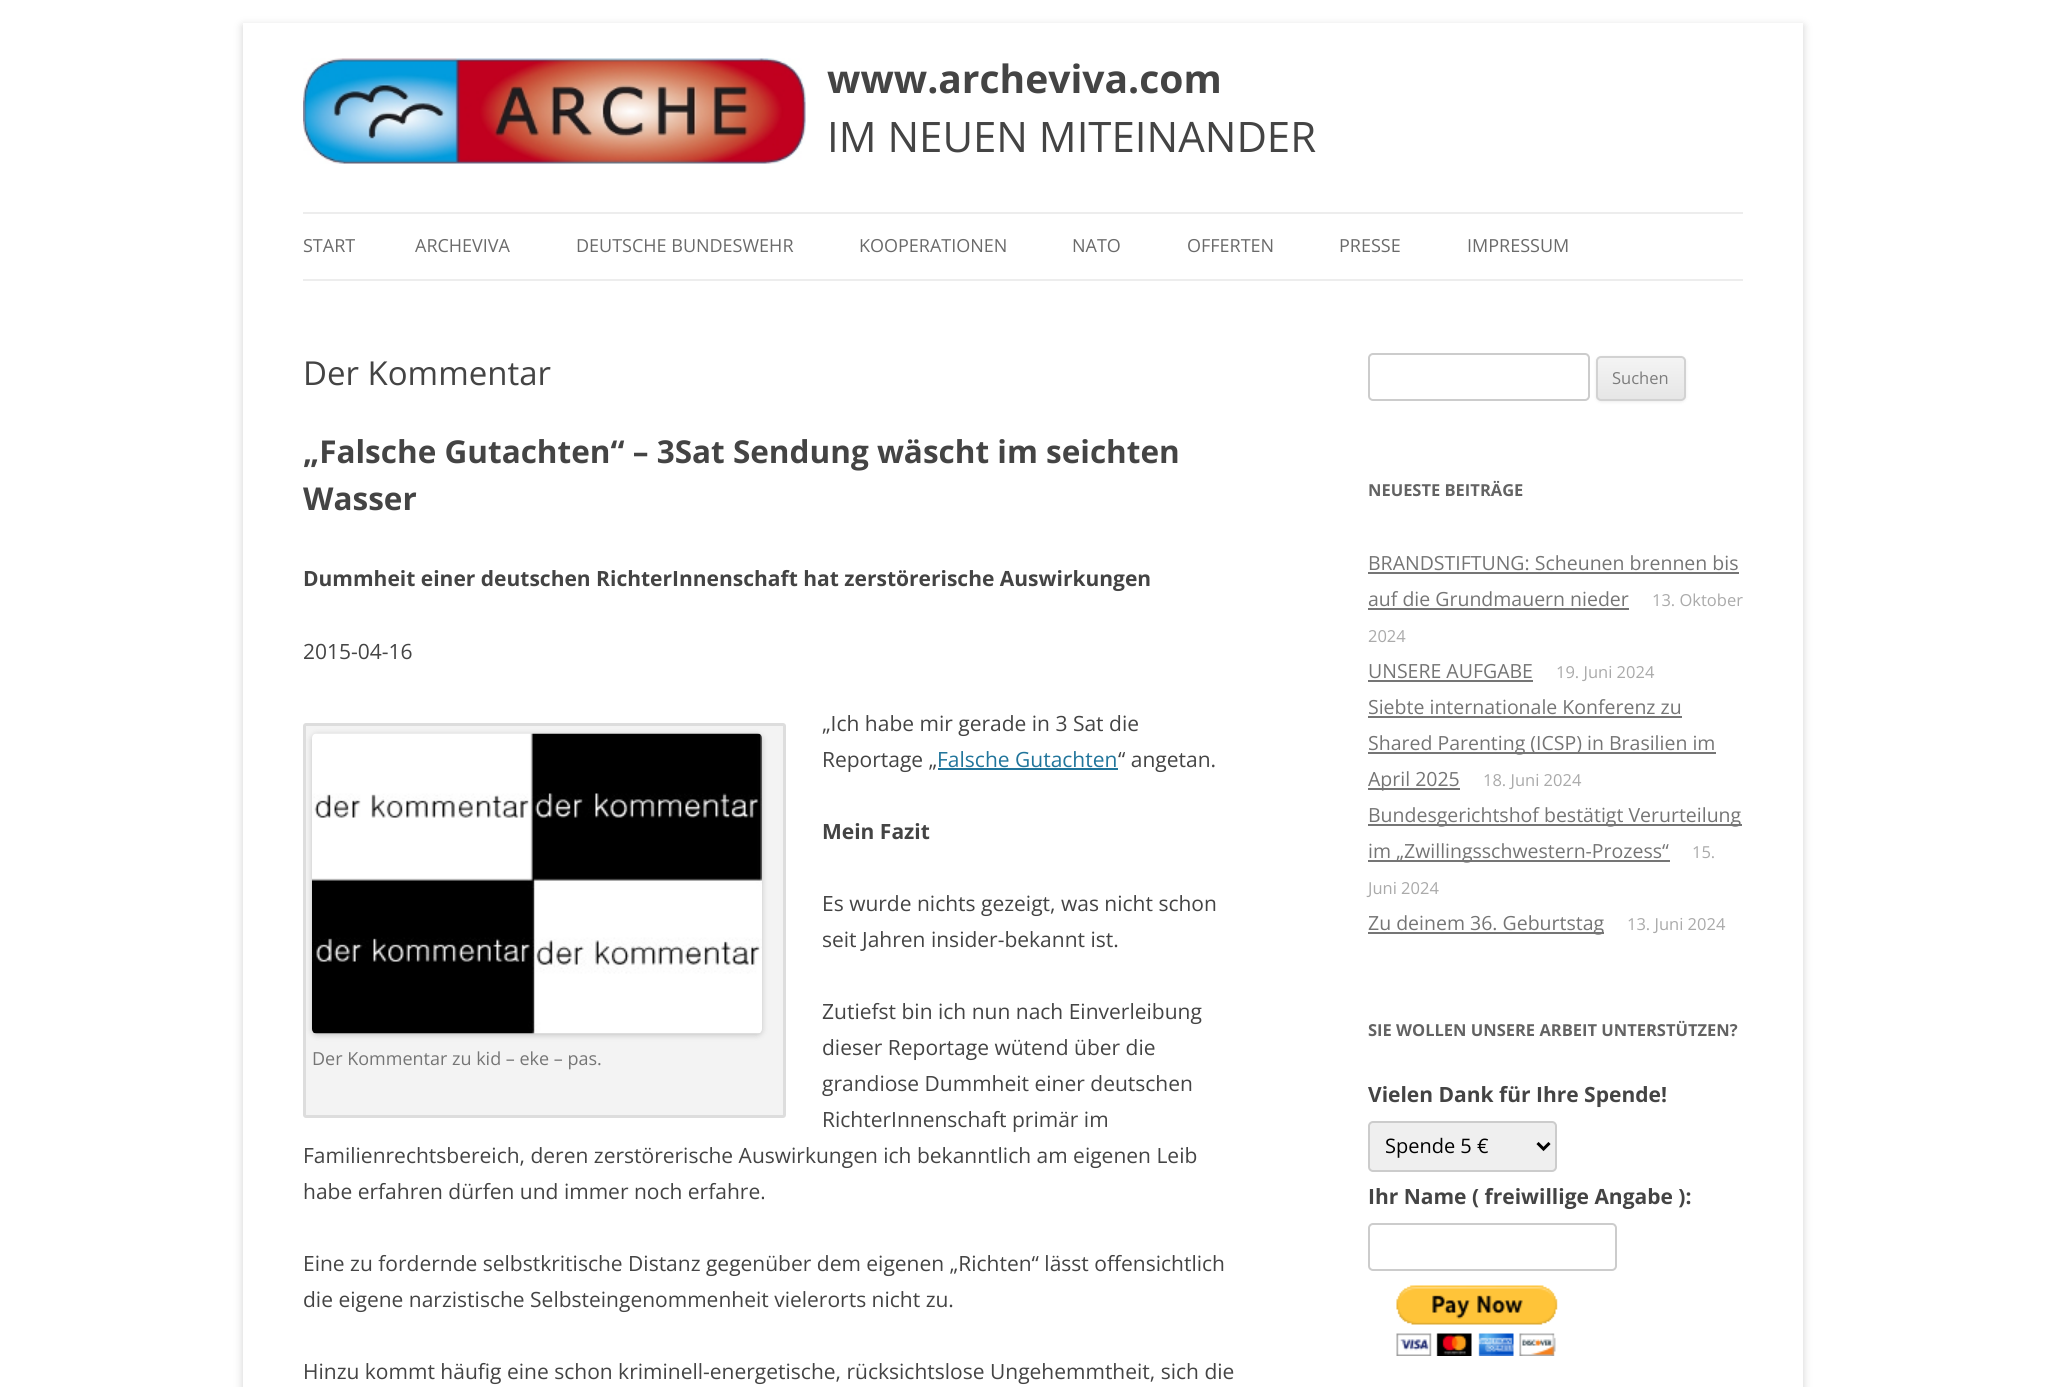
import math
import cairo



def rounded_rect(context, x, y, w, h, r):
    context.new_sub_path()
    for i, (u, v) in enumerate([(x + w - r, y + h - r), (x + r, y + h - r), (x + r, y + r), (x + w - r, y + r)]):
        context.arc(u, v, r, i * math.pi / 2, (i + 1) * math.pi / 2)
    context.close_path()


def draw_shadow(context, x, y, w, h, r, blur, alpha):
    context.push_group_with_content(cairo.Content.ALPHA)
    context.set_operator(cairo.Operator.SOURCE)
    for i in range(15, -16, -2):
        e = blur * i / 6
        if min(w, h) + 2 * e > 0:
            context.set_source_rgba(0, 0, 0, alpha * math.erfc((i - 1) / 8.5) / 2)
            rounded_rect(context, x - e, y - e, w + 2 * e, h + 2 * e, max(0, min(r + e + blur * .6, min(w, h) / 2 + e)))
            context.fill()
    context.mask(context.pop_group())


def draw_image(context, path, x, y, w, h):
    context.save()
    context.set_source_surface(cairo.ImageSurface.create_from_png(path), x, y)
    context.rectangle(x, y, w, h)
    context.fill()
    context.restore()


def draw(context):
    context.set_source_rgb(1, 1, 1)
    context.paint()
    context.save()
    context.set_fill_rule(cairo.FillRule.EVEN_ODD)
    context.new_path()
    context.move_to(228, 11)
    context.line_to(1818, 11)
    context.line_to(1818, 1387)
    context.line_to(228, 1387)
    context.close_path()
    context.move_to(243, 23)
    context.line_to(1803, 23)
    context.line_to(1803, 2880)
    context.line_to(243, 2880)
    context.close_path()
    context.clip()
    context.set_source_rgb(100 / 255, 100 / 255, 100 / 255)
    draw_shadow(context, 243, 26, 1560, 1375, 0, 4.5, 0.3)
    context.restore()
    draw_image(context, "images/1.png", 303, 58, 503, 106)
    context.set_source_rgb(237 / 255, 237 / 255, 237 / 255)
    context.rectangle(303, 212, 1440, 2)
    context.fill()
    context.rectangle(303, 279, 1440, 2)
    context.fill()
    context.set_source_rgb(33 / 255, 117 / 255, 155 / 255)
    context.rectangle(938, 768, 180, 2)
    context.fill()
    context.set_source_rgb(243 / 255, 243 / 255, 243 / 255)
    rounded_rect(context, 304.5, 724.5, 480, 392, 1.5)
    context.fill_preserve()
    context.set_source_rgb(221 / 255, 221 / 255, 221 / 255)
    context.set_line_width(3)
    context.stroke()
    context.set_source_rgb(0, 0, 0)
    draw_shadow(context, 312, 735, 450, 300, 5, 3, 0.2)
    draw_image(context, "images/2.png", 312, 733, 450, 301)
    rounded_rect(context, 1369, 354, 220, 46, 4)
    context.set_source_rgb(204 / 255, 204 / 255, 204 / 255)
    context.set_line_width(2)
    context.stroke()
    context.set_source_rgb(64 / 255, 64 / 255, 64 / 255)
    draw_shadow(context, 1596, 357, 90, 45, 5, 1.5, 0.1)
    context.save()
    rounded_rect(context, 1596, 356, 90, 45, 5)
    context.clip()
    gradient = cairo.LinearGradient(1641, 357, 1641, 399)
    gradient.add_color_stop_rgba(0, 244 / 255, 244 / 255, 244 / 255, 1)
    gradient.add_color_stop_rgba(1, 230 / 255, 230 / 255, 230 / 255, 1)
    context.set_source(gradient)
    context.rectangle(1596, 357, 90, 42)
    context.fill()
    context.restore()
    rounded_rect(context, 1597, 357, 88, 43, 4)
    context.set_source_rgb(210 / 255, 210 / 255, 210 / 255)
    context.stroke()
    context.set_source_rgb(117 / 255, 117 / 255, 117 / 255)
    context.rectangle(1368, 572, 371, 2)
    context.fill()
    context.rectangle(1368, 608, 261, 2)
    context.fill()
    context.rectangle(1368, 680, 165, 2)
    context.fill()
    context.rectangle(1368, 716, 314, 2)
    context.fill()
    context.rectangle(1368, 752, 348, 2)
    context.fill()
    context.rectangle(1368, 788, 92, 2)
    context.fill()
    context.rectangle(1368, 824, 374, 2)
    context.fill()
    context.rectangle(1368, 860, 302, 2)
    context.fill()
    context.rectangle(1368, 932, 236, 2)
    context.fill()
    context.set_source_rgb(239 / 255, 239 / 255, 239 / 255)
    rounded_rect(context, 1369, 1122, 187, 49, 4)
    context.fill_preserve()
    context.set_source_rgb(204 / 255, 204 / 255, 204 / 255)
    context.stroke()
    context.new_path()
    context.move_to(1537.5, 1143)
    context.line_to(1543.5, 1149)
    context.line_to(1549.5, 1143)
    context.set_source_rgb(0, 0, 0)
    context.set_line_width(3)
    context.stroke()
    rounded_rect(context, 1369, 1224, 247, 46, 4)
    context.set_source_rgb(204 / 255, 204 / 255, 204 / 255)
    context.set_line_width(2)
    context.stroke()
    draw_image(context, "images/3.png", 1396, 1285, 162, 71)
    context.select_font_face("Open Sans", cairo.FontSlant.NORMAL, cairo.FontWeight.BOLD)
    context.set_font_size(39)
    context.set_source_rgb(68 / 255, 68 / 255, 68 / 255)
    context.move_to(827, 93)
    context.show_text("www.archeviva.com")
    context.select_font_face("Open Sans")
    context.set_font_size(42)
    context.move_to(827, 152)
    context.show_text("IM NEUEN MITEINANDER")
    context.set_font_size(18)
    context.set_source_rgb(106 / 255, 106 / 255, 106 / 255)
    context.move_to(303, 252)
    context.show_text("START")
    context.move_to(415, 252)
    context.show_text("ARCHEVIVA")
    context.move_to(576, 252)
    context.show_text("DEUTSCHE BUNDESWEHR")
    context.move_to(859, 252)
    context.show_text("KOOPERATIONEN")
    context.move_to(1072, 252)
    context.show_text("NATO")
    context.move_to(1187, 252)
    context.show_text("OFFERTEN")
    context.move_to(1339, 252)
    context.show_text("PRESSE")
    context.move_to(1467, 252)
    context.show_text("IMPRESSUM")
    context.set_font_size(33)
    context.set_source_rgb(68 / 255, 68 / 255, 68 / 255)
    context.move_to(303, 385)
    context.show_text("Der Kommentar")
    context.select_font_face("Open Sans", cairo.FontSlant.NORMAL, cairo.FontWeight.BOLD)
    context.set_font_size(31.5)
    context.move_to(303, 463)
    context.show_text("„Falsche Gutachten“ – 3Sat Sendung wäscht im seichten")
    context.move_to(303, 510)
    context.show_text("Wasser")
    context.set_font_size(21)
    context.move_to(303, 586)
    context.show_text("Dummheit einer deutschen RichterInnenschaft hat zerstörerische Auswirkungen")
    context.select_font_face("Open Sans")
    context.move_to(303, 659)
    context.show_text("2015-04-16")
    context.move_to(822, 731)
    context.show_text("„Ich habe mir gerade in 3 Sat die")
    context.move_to(822, 767)
    context.show_text("Reportage „")
    context.set_source_rgb(33 / 255, 117 / 255, 155 / 255)
    context.move_to(937, 767)
    context.show_text("Falsche Gutachten")
    context.set_source_rgb(68 / 255, 68 / 255, 68 / 255)
    context.move_to(1118, 767)
    context.show_text("“ angetan.")
    context.select_font_face("Open Sans", cairo.FontSlant.NORMAL, cairo.FontWeight.BOLD)
    context.move_to(822, 839)
    context.show_text("Mein Fazit")
    context.select_font_face("Open Sans")
    context.move_to(822, 911)
    context.show_text("Es wurde nichts gezeigt, was nicht schon")
    context.move_to(822, 947)
    context.show_text("seit Jahren insider-bekannt ist.")
    context.move_to(822, 1019)
    context.show_text("Zutiefst bin ich nun nach Einverleibung")
    context.move_to(822, 1055)
    context.show_text("dieser Reportage wütend über die")
    context.move_to(822, 1091)
    context.show_text("grandiose Dummheit einer deutschen")
    context.move_to(822, 1127)
    context.show_text("RichterInnenschaft primär im")
    context.move_to(303, 1163)
    context.show_text("Familienrechtsbereich, deren zerstörerische Auswirkungen ich bekanntlich am eigenen Leib")
    context.move_to(303, 1199)
    context.show_text("habe erfahren dürfen und immer noch erfahre.")
    context.set_font_size(18)
    context.set_source_rgb(117 / 255, 117 / 255, 117 / 255)
    context.move_to(312, 1065)
    context.show_text("Der Kommentar zu kid – eke – pas.")
    context.set_font_size(21)
    context.set_source_rgb(68 / 255, 68 / 255, 68 / 255)
    context.move_to(303, 1271)
    context.show_text("Eine zu fordernde selbstkritische Distanz gegenüber dem eigenen „Richten“ lässt offensichtlich")
    context.move_to(303, 1307)
    context.show_text("die eigene narzistische Selbsteingenommenheit vielerorts nicht zu.")
    context.move_to(303, 1379)
    context.show_text("Hinzu kommt häufig eine schon kriminell-energetische, rücksichtslose Ungehemmtheit, sich die")
    context.set_font_size(16.5)
    context.set_source_rgb(124 / 255, 124 / 255, 124 / 255)
    context.move_to(1612, 384)
    context.show_text("Suchen")
    context.select_font_face("Open Sans", cairo.FontSlant.NORMAL, cairo.FontWeight.BOLD)
    context.set_source_rgb(99 / 255, 99 / 255, 99 / 255)
    context.move_to(1368, 496)
    context.show_text("NEUESTE BEITRÄGE")
    context.select_font_face("Open Sans")
    context.set_font_size(19.5)
    context.set_source_rgb(117 / 255, 117 / 255, 117 / 255)
    context.move_to(1368, 570)
    context.show_text("BRANDSTIFTUNG: Scheunen brennen bis")
    context.move_to(1368, 606)
    context.show_text("auf die Grundmauern nieder")
    context.set_font_size(16.5)
    context.set_source_rgb(170 / 255, 170 / 255, 170 / 255)
    context.move_to(1652, 606)
    context.show_text("13. Oktober")
    context.move_to(1368, 642)
    context.show_text("2024")
    context.set_font_size(19.5)
    context.set_source_rgb(117 / 255, 117 / 255, 117 / 255)
    context.move_to(1368, 678)
    context.show_text("UNSERE AUFGABE")
    context.set_font_size(16.5)
    context.set_source_rgb(170 / 255, 170 / 255, 170 / 255)
    context.move_to(1556, 678)
    context.show_text("19. Juni 2024")
    context.set_font_size(19.5)
    context.set_source_rgb(117 / 255, 117 / 255, 117 / 255)
    context.move_to(1368, 714)
    context.show_text("Siebte internationale Konferenz zu")
    context.move_to(1368, 750)
    context.show_text("Shared Parenting (ICSP) in Brasilien im")
    context.move_to(1368, 786)
    context.show_text("April 2025")
    context.set_font_size(16.5)
    context.set_source_rgb(170 / 255, 170 / 255, 170 / 255)
    context.move_to(1483, 786)
    context.show_text("18. Juni 2024")
    context.set_font_size(19.5)
    context.set_source_rgb(117 / 255, 117 / 255, 117 / 255)
    context.move_to(1368, 822)
    context.show_text("Bundesgerichtshof bestätigt Verurteilung")
    context.move_to(1368, 858)
    context.show_text("im „Zwillingsschwestern-Prozess“")
    context.set_font_size(16.5)
    context.set_source_rgb(170 / 255, 170 / 255, 170 / 255)
    context.move_to(1692, 858)
    context.show_text("15.")
    context.move_to(1368, 894)
    context.show_text("Juni 2024")
    context.set_font_size(19.5)
    context.set_source_rgb(117 / 255, 117 / 255, 117 / 255)
    context.move_to(1368, 930)
    context.show_text("Zu deinem 36. Geburtstag")
    context.set_font_size(16.5)
    context.set_source_rgb(170 / 255, 170 / 255, 170 / 255)
    context.move_to(1627, 930)
    context.show_text("13. Juni 2024")
    context.select_font_face("Open Sans", cairo.FontSlant.NORMAL, cairo.FontWeight.BOLD)
    context.set_source_rgb(99 / 255, 99 / 255, 99 / 255)
    context.move_to(1368, 1036)
    context.show_text("SIE WOLLEN UNSERE ARBEIT UNTERSTÜTZEN?")
    context.set_font_size(21)
    context.set_source_rgb(68 / 255, 68 / 255, 68 / 255)
    context.move_to(1368, 1102)
    context.show_text("Vielen Dank für Ihre Spende!")
    context.select_font_face("Open Sans")
    context.set_font_size(20)
    context.set_source_rgb(0, 0, 0)
    context.move_to(1385, 1153)
    context.show_text("Spende 5 €")
    context.select_font_face("Open Sans", cairo.FontSlant.NORMAL, cairo.FontWeight.BOLD)
    context.set_font_size(21)
    context.set_source_rgb(68 / 255, 68 / 255, 68 / 255)
    context.move_to(1368, 1204)
    context.show_text("Ihr Name ( freiwillige Angabe ):")


surface = cairo.ImageSurface(cairo.Format.RGB24, 2046, 1387)
context = cairo.Context(surface)
options = cairo.FontOptions()
options.set_hint_metrics(cairo.HintMetrics.OFF)
options.set_hint_style(cairo.HintStyle.NONE)
context.set_font_options(options)
context.set_miter_limit(4)
draw(context)
surface.write_to_png("out.png")
